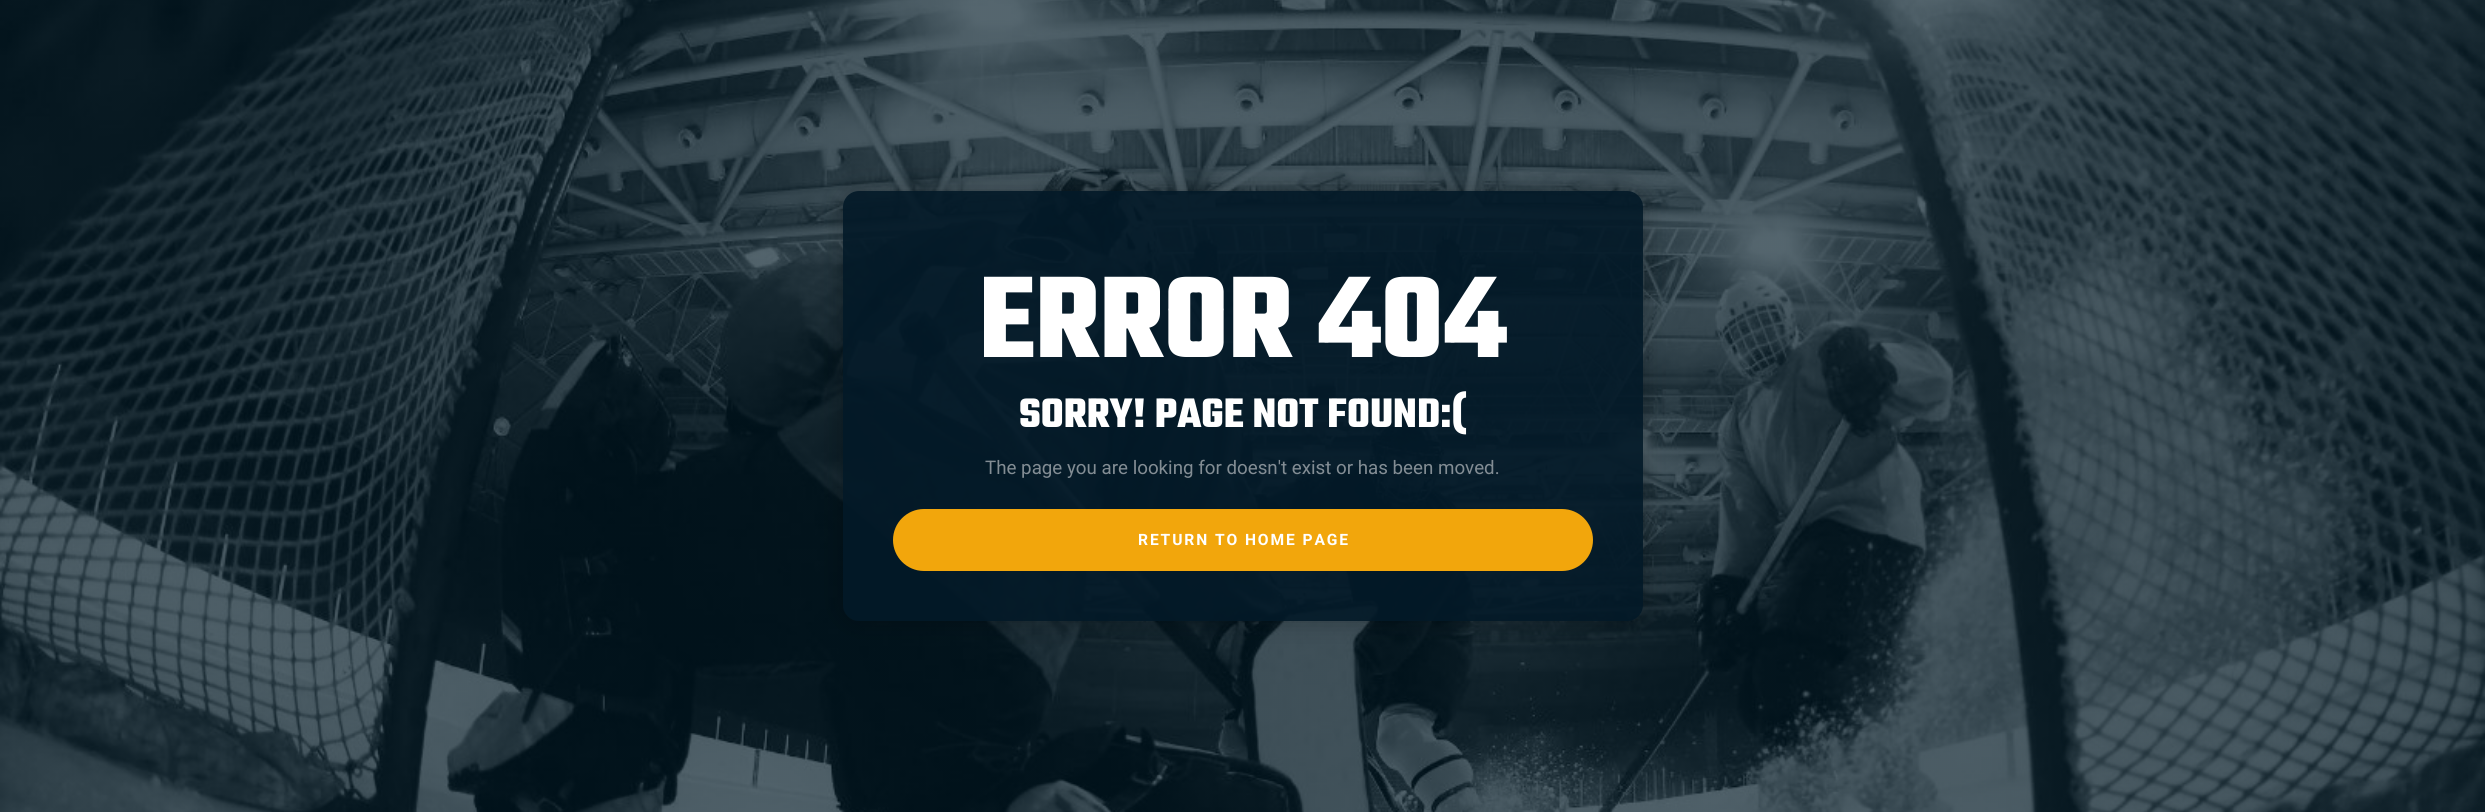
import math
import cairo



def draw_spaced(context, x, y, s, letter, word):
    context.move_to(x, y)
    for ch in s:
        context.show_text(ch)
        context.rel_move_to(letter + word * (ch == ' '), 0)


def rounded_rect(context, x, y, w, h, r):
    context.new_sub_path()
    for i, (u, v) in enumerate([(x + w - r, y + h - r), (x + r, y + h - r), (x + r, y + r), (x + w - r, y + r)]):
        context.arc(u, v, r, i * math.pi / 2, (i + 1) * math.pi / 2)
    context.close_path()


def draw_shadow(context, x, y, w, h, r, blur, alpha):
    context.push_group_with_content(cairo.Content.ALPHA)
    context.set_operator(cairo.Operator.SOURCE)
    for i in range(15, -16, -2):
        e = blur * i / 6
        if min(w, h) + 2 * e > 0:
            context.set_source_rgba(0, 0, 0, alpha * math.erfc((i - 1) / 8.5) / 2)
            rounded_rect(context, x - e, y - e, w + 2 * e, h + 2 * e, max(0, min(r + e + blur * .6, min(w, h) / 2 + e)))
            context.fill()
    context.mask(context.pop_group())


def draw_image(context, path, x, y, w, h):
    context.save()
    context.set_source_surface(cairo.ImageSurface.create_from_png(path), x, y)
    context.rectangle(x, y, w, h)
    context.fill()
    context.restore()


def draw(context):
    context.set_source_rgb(1, 1, 1)
    context.paint()
    draw_image(context, "images/1.png", 0, 0, 2485, 812)
    context.save()
    context.set_fill_rule(cairo.FillRule.EVEN_ODD)
    context.new_path()
    context.move_to(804, 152)
    context.line_to(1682, 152)
    context.line_to(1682, 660)
    context.line_to(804, 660)
    context.close_path()
    context.move_to(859, 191)
    context.line_to(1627, 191)
    context.curve_to(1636, 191, 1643, 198, 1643, 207)
    context.line_to(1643, 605)
    context.curve_to(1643, 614, 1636, 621, 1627, 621)
    context.line_to(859, 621)
    context.curve_to(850, 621, 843, 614, 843, 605)
    context.line_to(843, 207)
    context.curve_to(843, 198, 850, 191, 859, 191)
    context.close_path()
    context.clip()
    context.set_source_rgb(0, 0, 0)
    draw_shadow(context, 843, 191, 800, 430, 16, 12.5, 0.25)
    context.restore()
    context.set_source_rgba(3 / 255, 25 / 255, 39 / 255, 0.9)
    rounded_rect(context, 843, 191, 800, 430, 16)
    context.fill()
    context.set_source_rgb(242 / 255, 166 / 255, 12 / 255)
    rounded_rect(context, 893, 509, 700, 62, 31)
    context.fill()
    context.select_font_face("Teko", cairo.FontSlant.NORMAL, cairo.FontWeight.BOLD)
    context.set_font_size(125)
    context.set_source_rgb(1, 1, 1)
    context.move_to(979, 357)
    context.show_text("ERROR 404")
    context.set_font_size(44.5)
    context.move_to(1019, 427)
    context.show_text("SORRY! PAGE NOT FOUND:(")
    context.select_font_face("Roboto")
    context.set_font_size(18.75)
    context.set_source_rgb(131 / 255, 141 / 255, 148 / 255)
    context.move_to(985, 474)
    context.show_text("The page you are looking for doesn't exist or has been moved.")
    context.select_font_face("Roboto", cairo.FontSlant.NORMAL, cairo.FontWeight.BOLD)
    context.set_font_size(15.6)
    context.set_source_rgb(1, 1, 1)
    draw_spaced(context, 1138, 545, "RETURN TO HOME PAGE", 1.9, 0)


surface = cairo.ImageSurface(cairo.Format.RGB24, 2485, 812)
context = cairo.Context(surface)
options = cairo.FontOptions()
options.set_hint_metrics(cairo.HintMetrics.OFF)
options.set_hint_style(cairo.HintStyle.NONE)
context.set_font_options(options)
context.set_miter_limit(4)
draw(context)
surface.write_to_png("out.png")
